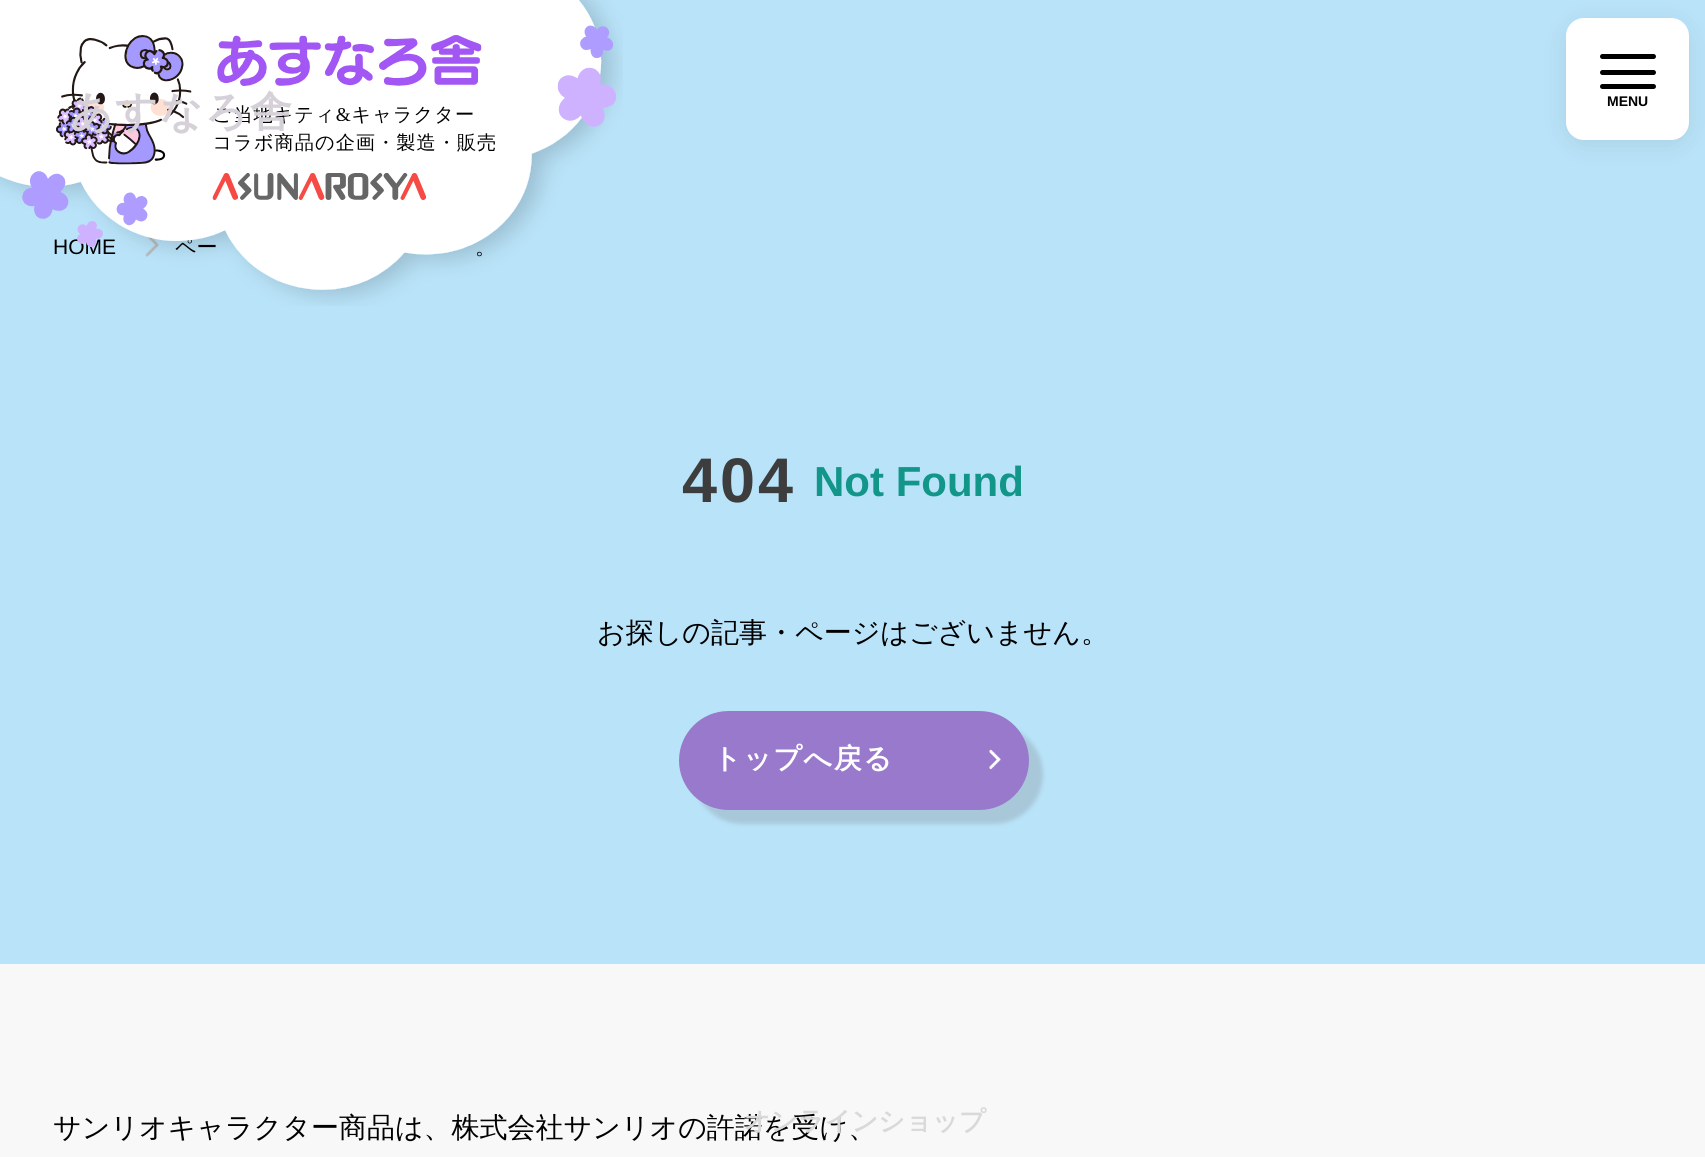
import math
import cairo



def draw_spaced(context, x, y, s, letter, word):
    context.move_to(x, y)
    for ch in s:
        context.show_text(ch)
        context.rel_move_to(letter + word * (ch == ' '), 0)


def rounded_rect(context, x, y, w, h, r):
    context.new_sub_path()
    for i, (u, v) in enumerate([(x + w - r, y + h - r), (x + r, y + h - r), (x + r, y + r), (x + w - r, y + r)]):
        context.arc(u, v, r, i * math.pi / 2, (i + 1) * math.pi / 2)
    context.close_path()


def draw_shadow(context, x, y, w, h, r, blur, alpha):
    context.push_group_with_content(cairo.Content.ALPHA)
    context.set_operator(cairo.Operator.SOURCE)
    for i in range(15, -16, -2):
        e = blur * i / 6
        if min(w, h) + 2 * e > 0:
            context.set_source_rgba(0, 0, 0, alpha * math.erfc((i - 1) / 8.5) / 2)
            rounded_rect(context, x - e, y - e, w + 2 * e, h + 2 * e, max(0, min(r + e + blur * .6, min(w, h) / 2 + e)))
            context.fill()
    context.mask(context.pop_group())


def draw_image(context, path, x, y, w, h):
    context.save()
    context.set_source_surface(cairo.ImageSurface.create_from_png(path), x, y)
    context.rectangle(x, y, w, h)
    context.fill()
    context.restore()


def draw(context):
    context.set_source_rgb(185 / 255, 227 / 255, 249 / 255)
    context.paint()
    context.set_source_rgb(0, 0, 0)
    draw_shadow(context, 1566, 23, 123, 122, 18, 14, 0.08)
    context.set_source_rgb(1, 1, 1)
    rounded_rect(context, 1566, 18, 123, 122, 18)
    context.fill()
    context.set_source_rgb(0, 0, 0)
    rounded_rect(context, 1600, 54, 56, 5, 2.5)
    context.fill()
    rounded_rect(context, 1600, 70, 56, 5, 2.5)
    context.fill()
    rounded_rect(context, 1600, 84, 56, 5, 2.5)
    context.fill()
    draw_image(context, "images/2.png", 145, 236, 14, 21)
    context.set_source_rgb(110 / 255, 110 / 255, 110 / 255)
    draw_shadow(context, 693, 725, 350, 99, 49.5, 2, 0.23)
    context.set_source_rgb(153 / 255, 121 / 255, 204 / 255)
    rounded_rect(context, 679, 711, 350, 99, 49.5)
    context.fill()
    draw_image(context, "images/3.png", 989, 749, 12, 21)
    context.set_source_rgb(248 / 255, 248 / 255, 248 / 255)
    context.rectangle(0, 964, 1705, 193)
    context.fill()
    context.select_font_face("Liberation Sans", cairo.FontSlant.NORMAL, cairo.FontWeight.BOLD)
    context.set_font_size(14)
    context.set_source_rgb(0, 0, 0)
    context.move_to(1607, 106)
    context.show_text("MENU")
    context.select_font_face("Liberation Sans")
    context.set_font_size(21)
    context.move_to(53, 254)
    context.show_text("HOME")
    context.select_font_face("WenQuanYi Zen Hei Medium")
    context.move_to(175, 254)
    context.show_text("ペー")
    context.move_to(475, 254)
    context.show_text("。")
    draw_image(context, "images/1.png", 0, 0, 623, 306)
    context.select_font_face("WenQuanYi Zen Hei", cairo.FontSlant.NORMAL, cairo.FontWeight.BOLD)
    context.set_font_size(42)
    context.set_source_rgb(214 / 255, 209 / 255, 216 / 255)
    draw_spaced(context, 70, 126, "あすなろ舎", 2, 0)
    context.select_font_face("Liberation Sans", cairo.FontSlant.NORMAL, cairo.FontWeight.BOLD)
    context.set_font_size(63)
    context.set_source_rgb(61 / 255, 61 / 255, 61 / 255)
    draw_spaced(context, 682, 502, "404", 3, 0)
    context.set_font_size(42)
    context.set_source_rgb(18 / 255, 150 / 255, 137 / 255)
    context.move_to(814, 496)
    context.show_text("Not Found")
    context.select_font_face("WenQuanYi Zen Hei Medium")
    context.set_font_size(28)
    context.set_source_rgb(0, 0, 0)
    context.move_to(597, 642)
    context.show_text("お探しの記事・ページはございません。")
    context.select_font_face("WenQuanYi Zen Hei", cairo.FontSlant.NORMAL, cairo.FontWeight.BOLD)
    context.set_source_rgb(1, 1, 1)
    draw_spaced(context, 713, 768, "トップへ戻る", 1.5, 0)
    context.select_font_face("WenQuanYi Zen Hei Medium")
    context.set_source_rgb(0, 0, 0)
    context.move_to(53, 1137)
    context.show_text("サンリオキャラクター商品は、株式会社サンリオの許諾を受け、")
    context.select_font_face("WenQuanYi Zen Hei", cairo.FontSlant.NORMAL, cairo.FontWeight.BOLD)
    context.set_font_size(26.25)
    context.set_source_rgb(217 / 255, 217 / 255, 217 / 255)
    context.move_to(744, 1130)
    context.show_text("オンラインショップ")


surface = cairo.ImageSurface(cairo.Format.RGB24, 1705, 1157)
context = cairo.Context(surface)
options = cairo.FontOptions()
options.set_hint_metrics(cairo.HintMetrics.OFF)
options.set_hint_style(cairo.HintStyle.NONE)
context.set_font_options(options)
context.set_miter_limit(4)
draw(context)
surface.write_to_png("out.png")
